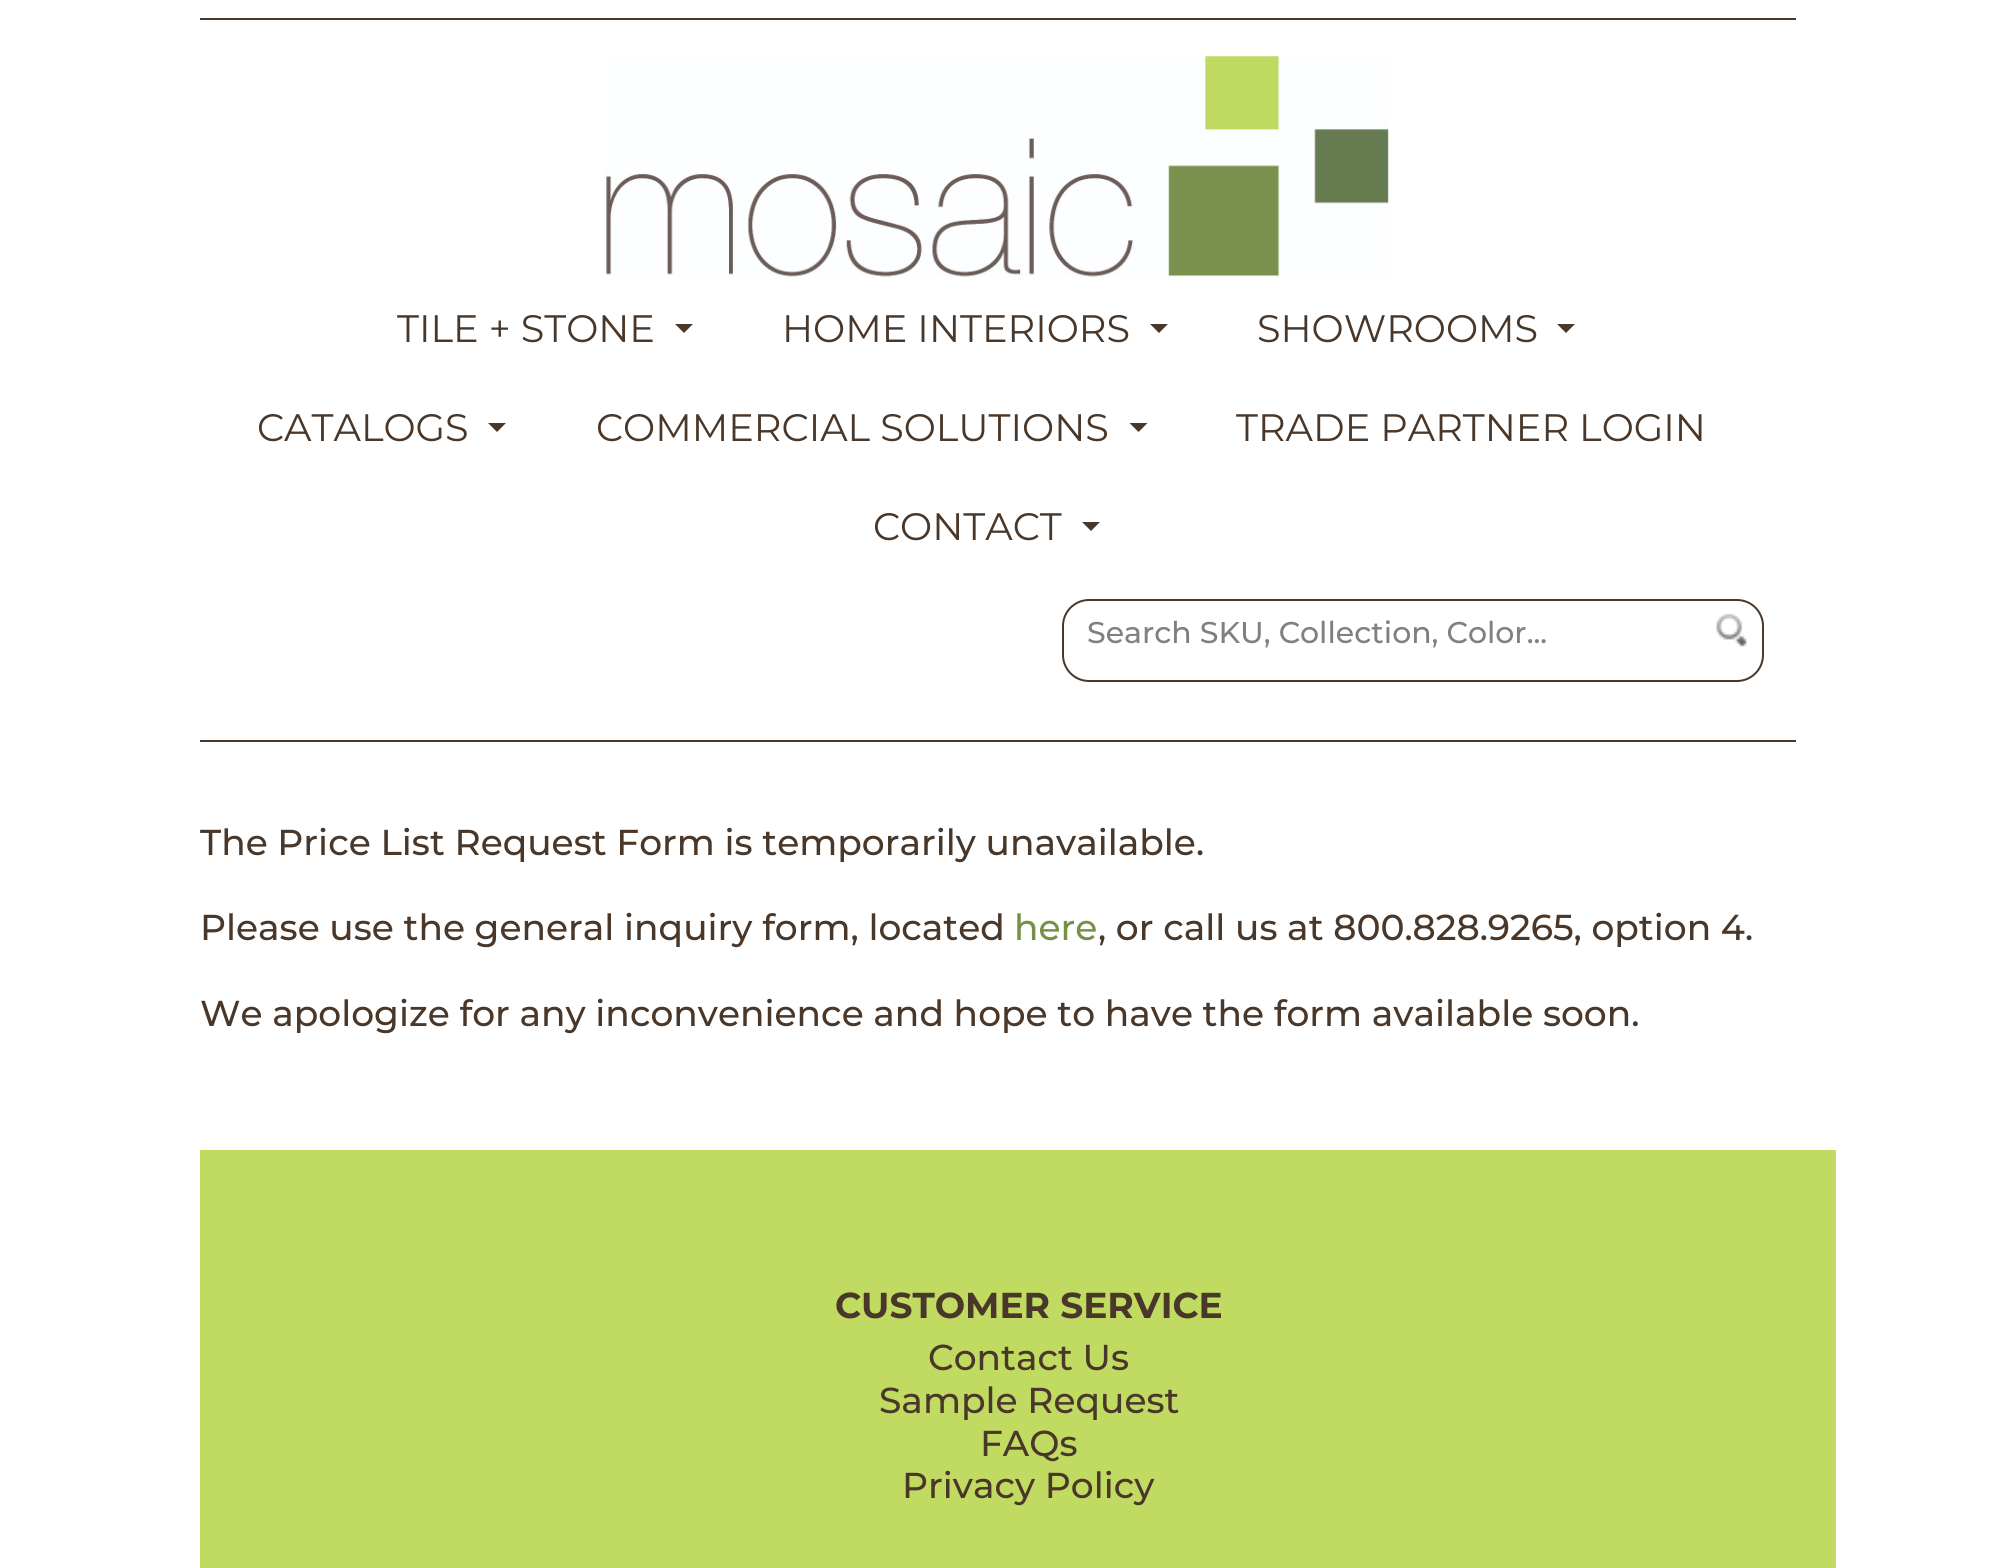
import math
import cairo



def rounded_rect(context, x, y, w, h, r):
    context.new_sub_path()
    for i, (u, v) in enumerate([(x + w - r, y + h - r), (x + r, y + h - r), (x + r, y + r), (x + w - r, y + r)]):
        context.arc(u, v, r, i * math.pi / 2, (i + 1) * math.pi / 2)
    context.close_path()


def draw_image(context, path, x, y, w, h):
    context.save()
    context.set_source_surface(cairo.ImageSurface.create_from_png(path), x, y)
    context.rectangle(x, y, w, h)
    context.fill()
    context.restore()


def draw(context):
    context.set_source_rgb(1, 1, 1)
    context.paint()
    context.set_source_rgb(73 / 255, 55 / 255, 41 / 255)
    context.rectangle(200, 18, 1596, 2)
    context.fill()
    draw_image(context, "images/1.png", 606, 56, 783, 222)
    context.new_path()
    context.move_to(675, 324)
    context.line_to(693, 324)
    context.line_to(684, 333)
    context.close_path()
    context.fill()
    context.new_path()
    context.move_to(1150, 324)
    context.line_to(1168, 324)
    context.line_to(1159, 333)
    context.close_path()
    context.fill()
    context.new_path()
    context.move_to(1557, 324)
    context.line_to(1575, 324)
    context.line_to(1566, 333)
    context.close_path()
    context.fill()
    context.new_path()
    context.move_to(488, 423)
    context.line_to(506, 423)
    context.line_to(497, 432)
    context.close_path()
    context.fill()
    context.new_path()
    context.move_to(1129.5, 423)
    context.line_to(1147.5, 423)
    context.line_to(1138.5, 432)
    context.close_path()
    context.fill()
    context.new_path()
    context.move_to(1082, 522)
    context.line_to(1100, 522)
    context.line_to(1091, 531)
    context.close_path()
    context.fill()
    rounded_rect(context, 1063, 600, 700, 81, 26)
    context.stroke()
    draw_image(context, "images/2.png", 1716, 613, 31, 34)
    context.rectangle(200, 740, 1596, 2)
    context.fill()
    context.set_source_rgb(193 / 255, 218 / 255, 98 / 255)
    context.rectangle(200, 1150, 1636, 418)
    context.fill()
    context.select_font_face("Montserrat")
    context.set_font_size(38.25)
    context.set_source_rgb(73 / 255, 55 / 255, 41 / 255)
    context.move_to(397, 342)
    context.show_text("TILE + STONE")
    context.move_to(782, 342)
    context.show_text("HOME INTERIORS")
    context.move_to(1257, 342)
    context.show_text("SHOWROOMS")
    context.move_to(257, 441)
    context.show_text("CATALOGS")
    context.move_to(596, 441)
    context.show_text("COMMERCIAL SOLUTIONS")
    context.move_to(1236, 441)
    context.show_text("TRADE PARTNER LOGIN")
    context.move_to(873, 540)
    context.show_text("CONTACT")
    context.select_font_face("Montserrat Medium")
    context.set_font_size(30)
    context.set_source_rgb(128 / 255, 128 / 255, 128 / 255)
    context.move_to(1087, 643)
    context.show_text("Search SKU, Collection, Color...")
    context.set_font_size(36)
    context.set_source_rgb(73 / 255, 55 / 255, 41 / 255)
    context.move_to(200, 855)
    context.show_text("The Price List Request Form is temporarily unavailable.")
    context.move_to(200, 940)
    context.show_text("Please use the general inquiry form, located")
    context.set_source_rgb(119 / 255, 144 / 255, 72 / 255)
    context.move_to(1014, 940)
    context.show_text("here")
    context.set_source_rgb(73 / 255, 55 / 255, 41 / 255)
    context.move_to(1098, 940)
    context.show_text(", or call us at 800.828.9265, option 4.")
    context.move_to(200, 1026)
    context.show_text("We apologize for any inconvenience and hope to have the form available soon.")
    context.select_font_face("Montserrat", cairo.FontSlant.NORMAL, cairo.FontWeight.BOLD)
    context.move_to(835, 1318)
    context.show_text("CUSTOMER SERVICE")
    context.select_font_face("Montserrat Medium")
    context.move_to(928, 1370)
    context.show_text("Contact Us")
    context.move_to(879, 1413)
    context.show_text("Sample Request")
    context.move_to(980, 1456)
    context.show_text("FAQs")
    context.move_to(902, 1498)
    context.show_text("Privacy Policy")


surface = cairo.ImageSurface(cairo.Format.RGB24, 1995, 1568)
context = cairo.Context(surface)
options = cairo.FontOptions()
options.set_hint_metrics(cairo.HintMetrics.OFF)
options.set_hint_style(cairo.HintStyle.NONE)
context.set_font_options(options)
context.set_miter_limit(4)
draw(context)
surface.write_to_png("out.png")
